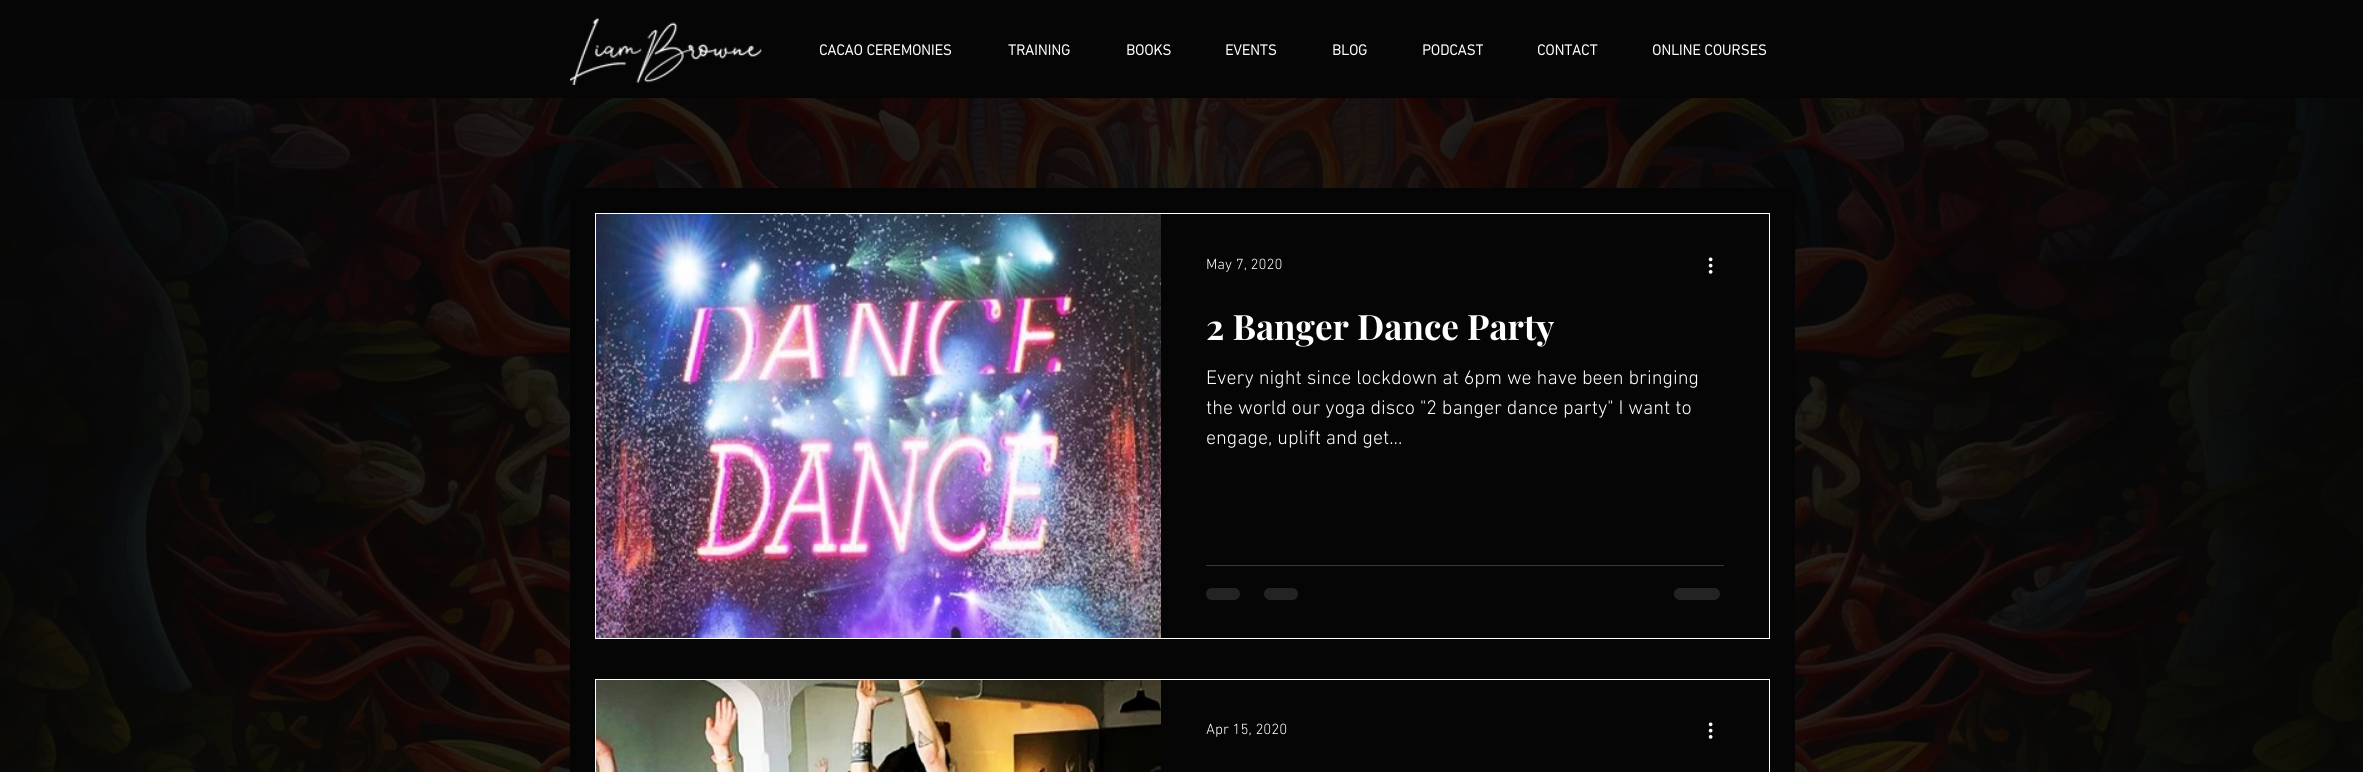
import math
import cairo



def rounded_rect(context, x, y, w, h, r):
    context.new_sub_path()
    for i, (u, v) in enumerate([(x + w - r, y + h - r), (x + r, y + h - r), (x + r, y + r), (x + w - r, y + r)]):
        context.arc(u, v, r, i * math.pi / 2, (i + 1) * math.pi / 2)
    context.close_path()


def draw_image(context, path, x, y, w, h):
    context.save()
    context.set_source_surface(cairo.ImageSurface.create_from_png(path), x, y)
    context.rectangle(x, y, w, h)
    context.fill()
    context.restore()


def draw(context):
    context.set_source_rgb(5 / 255, 5 / 255, 5 / 255)
    context.paint()
    draw_image(context, "images/1.png", 570, 18, 192, 67)
    draw_image(context, "images/5.png", 0, 98, 2363, 674)
    context.set_source_rgb(5 / 255, 5 / 255, 5 / 255)
    context.rectangle(570, 188, 1225, 584)
    context.fill()
    context.rectangle(595.5, 213.5, 1174, 425)
    context.set_source_rgb(1, 1, 1)
    context.set_line_width(1)
    context.stroke()
    draw_image(context, "images/2.png", 596, 214, 565, 424)
    draw_image(context, "images/3.png", 1708, 257, 5, 17)
    context.set_source_rgb(55 / 255, 55 / 255, 55 / 255)
    context.rectangle(1206, 565, 518, 1)
    context.fill()
    context.set_source_rgb(35 / 255, 35 / 255, 35 / 255)
    rounded_rect(context, 1206, 588, 34, 12, 6)
    context.fill()
    rounded_rect(context, 1264, 588, 34, 12, 6)
    context.fill()
    rounded_rect(context, 1674, 588, 46, 12, 6)
    context.fill()
    context.rectangle(595.5, 679.5, 1174, 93)
    context.set_source_rgb(1, 1, 1)
    context.stroke()
    draw_image(context, "images/4.png", 596, 680, 565, 92)
    draw_image(context, "images/3.png", 1708, 722, 5, 17)
    context.select_font_face("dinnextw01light", cairo.FontSlant.NORMAL, cairo.FontWeight.BOLD)
    context.set_font_size(15)
    context.move_to(819, 55)
    context.show_text("CACAO CEREMONIES")
    context.move_to(1008, 55)
    context.show_text("TRAINING")
    context.move_to(1126, 55)
    context.show_text("BOOKS")
    context.move_to(1225, 55)
    context.show_text("EVENTS")
    context.move_to(1332, 55)
    context.show_text("BLOG")
    context.move_to(1422, 55)
    context.show_text("PODCAST")
    context.move_to(1537, 55)
    context.show_text("CONTACT")
    context.move_to(1652, 55)
    context.show_text("ONLINE COURSES")
    context.select_font_face("dinnextw01light Light")
    context.move_to(1206, 269)
    context.show_text("May 7, 2020")
    context.select_font_face("Playfair Display", cairo.FontSlant.NORMAL, cairo.FontWeight.BOLD)
    context.set_font_size(35)
    context.move_to(1206, 340)
    context.show_text("2 Banger Dance Party")
    context.select_font_face("dinnextw01light Light")
    context.set_font_size(20)
    context.move_to(1206, 384)
    context.show_text("Every night since lockdown at 6pm we have been bringing")
    context.move_to(1206, 414)
    context.show_text("the world our yoga disco \"2 banger dance party\" I want to")
    context.move_to(1206, 444)
    context.show_text("engage, uplift and get...")
    context.set_font_size(15)
    context.move_to(1206, 734)
    context.show_text("Apr 15, 2020")


surface = cairo.ImageSurface(cairo.Format.RGB24, 2363, 772)
context = cairo.Context(surface)
options = cairo.FontOptions()
options.set_hint_metrics(cairo.HintMetrics.OFF)
options.set_hint_style(cairo.HintStyle.NONE)
context.set_font_options(options)
context.set_miter_limit(4)
draw(context)
surface.write_to_png("out.png")
